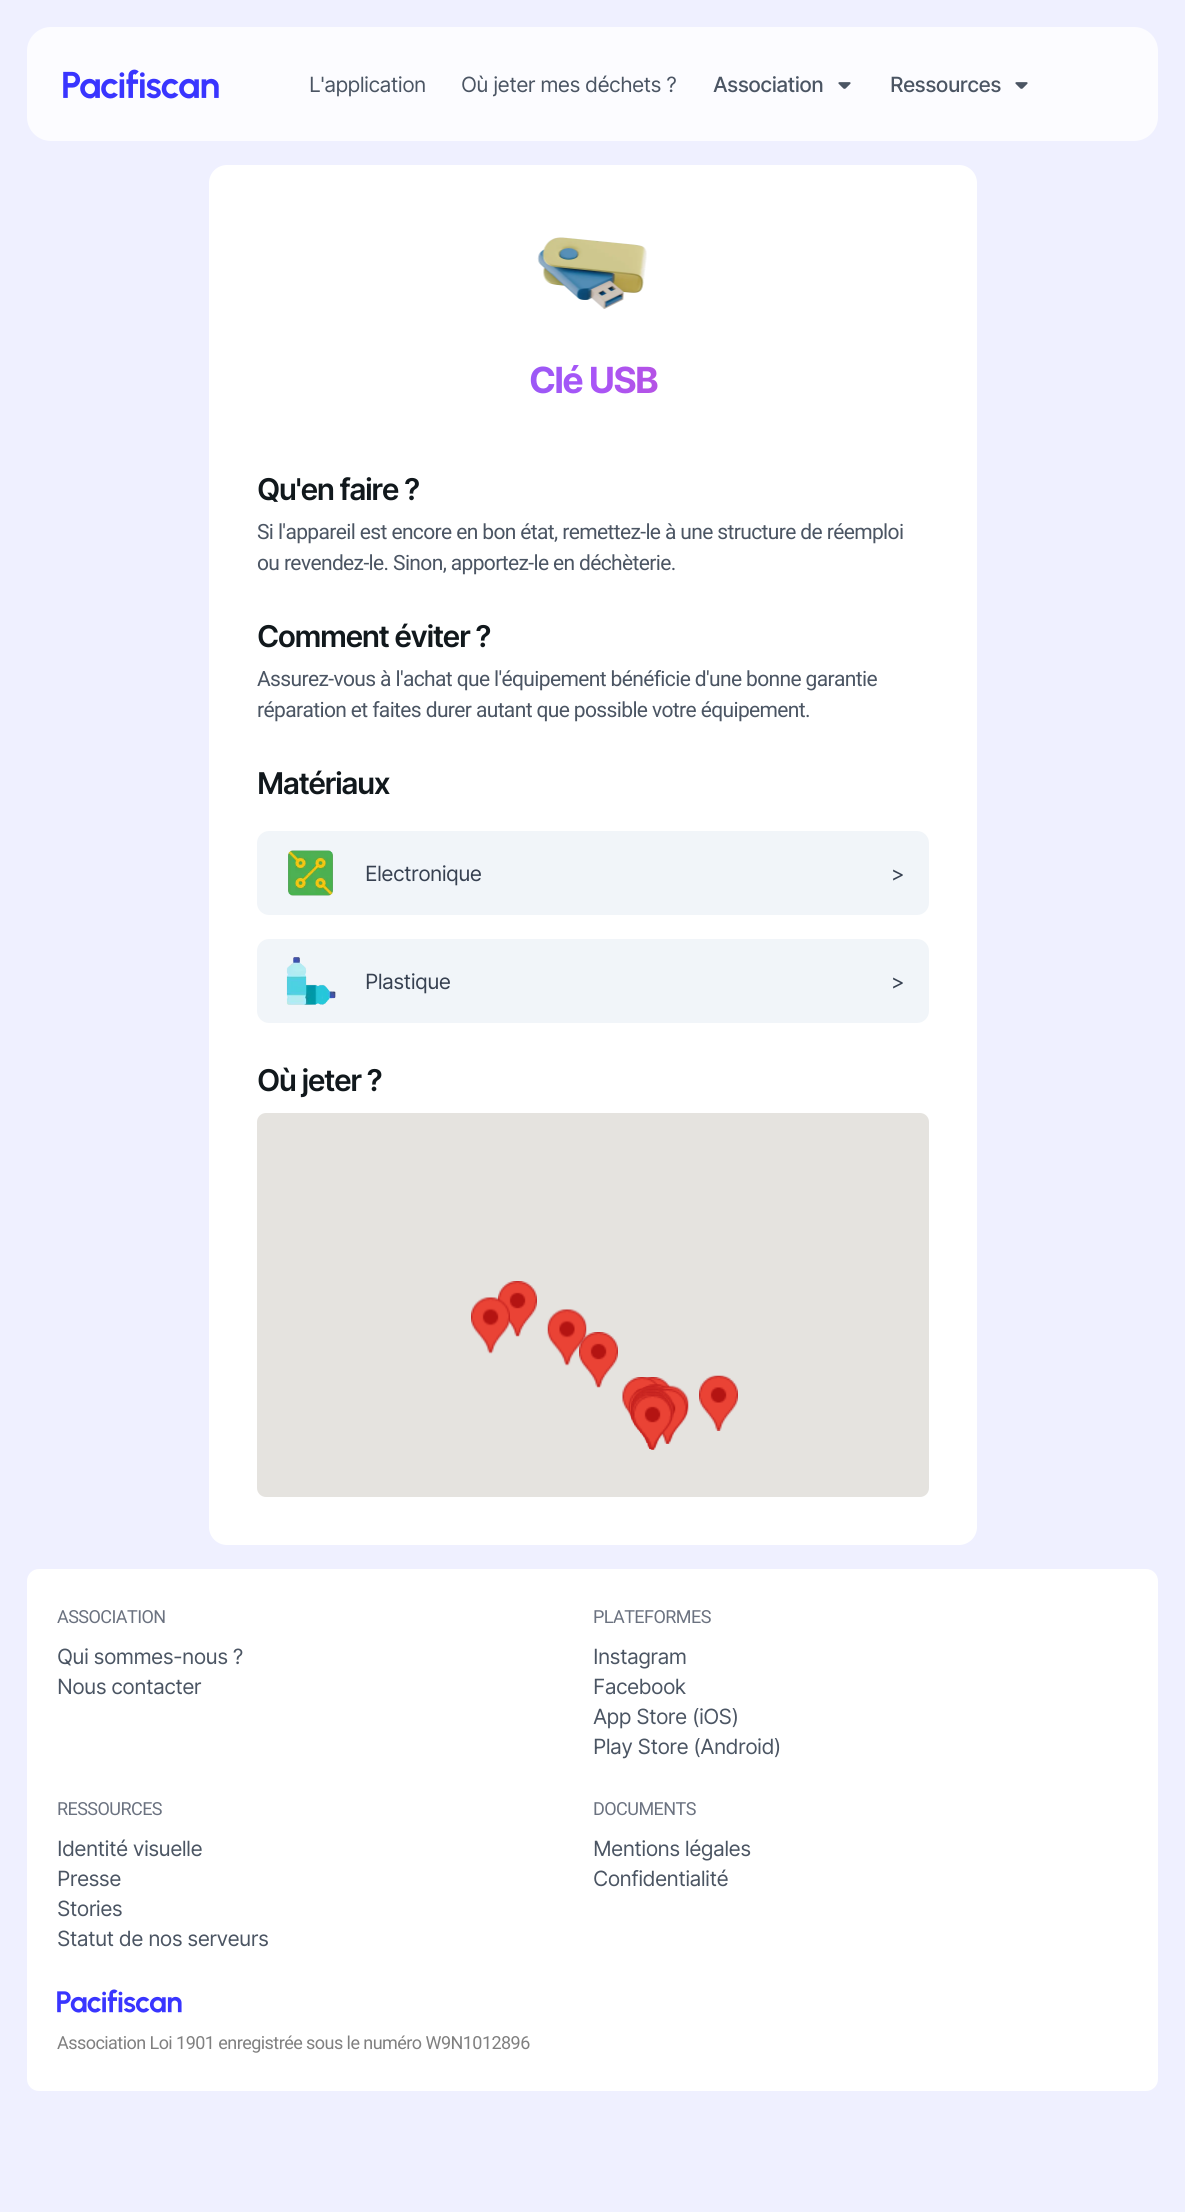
import math
import cairo



def draw_spaced(context, x, y, s, letter, word):
    context.move_to(x, y)
    for ch in s:
        context.show_text(ch)
        context.rel_move_to(letter + word * (ch == ' '), 0)


def rounded_rect(context, x, y, w, h, r):
    context.new_sub_path()
    for i, (u, v) in enumerate([(x + w - r, y + h - r), (x + r, y + h - r), (x + r, y + r), (x + w - r, y + r)]):
        context.arc(u, v, r, i * math.pi / 2, (i + 1) * math.pi / 2)
    context.close_path()


def draw_image(context, path, x, y, w, h):
    context.save()
    context.set_source_surface(cairo.ImageSurface.create_from_png(path), x, y)
    context.rectangle(x, y, w, h)
    context.fill()
    context.restore()


def draw(context):
    context.set_source_rgb(239 / 255, 240 / 255, 1)
    context.paint()
    context.set_source_rgb(252 / 255, 252 / 255, 1)
    rounded_rect(context, 27, 27, 1131, 114, 24)
    context.fill()
    draw_image(context, "images/1.png", 63, 69, 156, 30)
    draw_image(context, "images/2.png", 838, 82, 13, 7)
    draw_image(context, "images/2.png", 1015, 82, 13, 7)
    context.set_source_rgb(1, 1, 1)
    rounded_rect(context, 209, 165, 768, 1380, 18)
    context.fill()
    draw_image(context, "images/3.png", 537, 237, 110, 72)
    context.set_source_rgb(241 / 255, 245 / 255, 249 / 255)
    rounded_rect(context, 257, 831, 672, 84, 12)
    context.fill()
    draw_image(context, "images/4.png", 288, 850, 45, 46)
    rounded_rect(context, 257, 939, 672, 84, 12)
    context.fill()
    draw_image(context, "images/5.png", 286, 957, 50, 48)
    context.set_source_rgb(229 / 255, 227 / 255, 223 / 255)
    rounded_rect(context, 257, 1113, 672, 384, 9)
    context.fill()
    draw_image(context, "images/7.png", 498, 1281, 39, 56)
    draw_image(context, "images/6.png", 471, 1297, 39, 57)
    draw_image(context, "images/8.png", 547, 1309, 40, 57)
    draw_image(context, "images/9.png", 579, 1332, 39, 56)
    draw_image(context, "images/12.png", 642, 1377, 29, 12)
    draw_image(context, "images/10.png", 622, 1377, 39, 56)
    draw_image(context, "images/11.png", 699, 1375, 39, 56)
    draw_image(context, "images/13.png", 640, 1384, 30, 56)
    draw_image(context, "images/14.png", 640, 1384, 30, 56)
    draw_image(context, "images/15.png", 658, 1385, 31, 57)
    draw_image(context, "images/16.png", 634, 1386, 33, 10)
    draw_image(context, "images/17.png", 628, 1387, 31, 56)
    draw_image(context, "images/19.png", 634, 1387, 33, 56)
    draw_image(context, "images/18.png", 631, 1387, 33, 56)
    draw_image(context, "images/24.png", 657, 1389, 30, 55)
    draw_image(context, "images/22.png", 634, 1389, 40, 56)
    draw_image(context, "images/20.png", 631, 1389, 40, 56)
    draw_image(context, "images/21.png", 631, 1389, 40, 56)
    draw_image(context, "images/26.png", 633, 1390, 39, 53)
    draw_image(context, "images/23.png", 631, 1390, 40, 56)
    draw_image(context, "images/25.png", 631, 1390, 40, 56)
    draw_image(context, "images/29.png", 634, 1392, 40, 56)
    draw_image(context, "images/27.png", 631, 1392, 40, 56)
    draw_image(context, "images/28.png", 631, 1392, 40, 56)
    draw_image(context, "images/34.png", 631, 1400, 40, 48)
    draw_image(context, "images/30.png", 631, 1393, 40, 56)
    draw_image(context, "images/31.png", 633, 1393, 39, 56)
    draw_image(context, "images/32.png", 631, 1395, 40, 54)
    draw_image(context, "images/35.png", 631, 1404, 40, 45)
    draw_image(context, "images/33.png", 633, 1395, 39, 55)
    context.set_source_rgb(1, 1, 1)
    rounded_rect(context, 27, 1569, 1131, 522, 12)
    context.fill()
    draw_image(context, "images/36.png", 57, 1989, 125, 24)
    context.select_font_face("Inter")
    context.set_font_size(21)
    context.set_source_rgb(75 / 255, 85 / 255, 99 / 255)
    draw_spaced(context, 309, 92, "L'application", -0.63, 0)
    draw_spaced(context, 461, 92, "Où jeter mes déchets ?", -0.63, 0)
    context.select_font_face("Inter Medium")
    draw_spaced(context, 713, 92, "Association", -0.63, 0)
    draw_spaced(context, 890, 92, "Ressources", -0.63, 0)
    context.select_font_face("Inter", cairo.FontSlant.NORMAL, cairo.FontWeight.BOLD)
    context.set_font_size(36)
    gradient = cairo.LinearGradient(257, 381, 929, 381)
    gradient.add_color_stop_rgba(0, 99 / 255, 102 / 255, 241 / 255, 1)
    gradient.add_color_stop_rgba(0.5, 168 / 255, 85 / 255, 247 / 255, 1)
    gradient.add_color_stop_rgba(1, 236 / 255, 72 / 255, 153 / 255, 1)
    context.set_source(gradient)
    draw_spaced(context, 529, 393, "Clé USB", -1.75, 0)
    context.select_font_face("Inter SemiBold")
    context.set_font_size(30)
    context.set_source_rgb(17 / 255, 24 / 255, 28 / 255)
    draw_spaced(context, 257, 500, "Qu'en faire ?", -1.5, 0)
    context.select_font_face("Roboto")
    context.set_font_size(21)
    context.set_source_rgb(75 / 255, 85 / 255, 99 / 255)
    draw_spaced(context, 257, 539, "Si l'appareil est encore en bon état, remettez-le à une structure de réemploi", -0.63, 0)
    draw_spaced(context, 257, 570, "ou revendez-le. Sinon, apportez-le en déchèterie.", -0.63, 0)
    context.select_font_face("Inter SemiBold")
    context.set_font_size(30)
    context.set_source_rgb(17 / 255, 24 / 255, 28 / 255)
    draw_spaced(context, 257, 647, "Comment éviter ?", -1.5, 0)
    context.select_font_face("Roboto")
    context.set_font_size(21)
    context.set_source_rgb(75 / 255, 85 / 255, 99 / 255)
    draw_spaced(context, 257, 686, "Assurez-vous à l'achat que l'équipement bénéficie d'une bonne garantie", -0.63, 0)
    draw_spaced(context, 257, 717, "réparation et faites durer autant que possible votre équipement.", -0.63, 0)
    context.select_font_face("Inter SemiBold")
    context.set_font_size(30)
    context.set_source_rgb(17 / 255, 24 / 255, 28 / 255)
    draw_spaced(context, 257, 794, "Matériaux", -1.5, 0)
    context.select_font_face("Inter")
    context.set_font_size(21)
    context.set_source_rgb(55 / 255, 65 / 255, 81 / 255)
    draw_spaced(context, 365, 881, "Electronique", -0.63, 0)
    draw_spaced(context, 891, 881, ">", -0.63, 0)
    draw_spaced(context, 365, 989, "Plastique", -0.63, 0)
    draw_spaced(context, 891, 989, ">", -0.63, 0)
    context.select_font_face("Inter SemiBold")
    context.set_font_size(30)
    context.set_source_rgb(17 / 255, 24 / 255, 28 / 255)
    draw_spaced(context, 257, 1091, "Où jeter ?", -1.5, 0)
    context.select_font_face("Roboto")
    context.set_font_size(18)
    context.set_source_rgb(107 / 255, 114 / 255, 128 / 255)
    draw_spaced(context, 57, 1623, "ASSOCIATION", -0.55, 0)
    context.select_font_face("Inter")
    context.set_font_size(21)
    context.set_source_rgb(75 / 255, 85 / 255, 99 / 255)
    draw_spaced(context, 57, 1664, "Qui sommes-nous ?", -0.63, 0)
    draw_spaced(context, 57, 1694, "Nous contacter", -0.63, 0)
    context.select_font_face("Roboto")
    context.set_font_size(18)
    context.set_source_rgb(107 / 255, 114 / 255, 128 / 255)
    draw_spaced(context, 593, 1623, "PLATEFORMES", -0.55, 0)
    context.select_font_face("Inter")
    context.set_font_size(21)
    context.set_source_rgb(75 / 255, 85 / 255, 99 / 255)
    draw_spaced(context, 593, 1664, "Instagram", -0.63, 0)
    draw_spaced(context, 593, 1694, "Facebook", -0.63, 0)
    draw_spaced(context, 593, 1724, "App Store (iOS)", -0.63, 0)
    draw_spaced(context, 593, 1754, "Play Store (Android)", -0.63, 0)
    context.select_font_face("Roboto")
    context.set_font_size(18)
    context.set_source_rgb(107 / 255, 114 / 255, 128 / 255)
    draw_spaced(context, 57, 1815, "RESSOURCES", -0.55, 0)
    context.select_font_face("Inter")
    context.set_font_size(21)
    context.set_source_rgb(75 / 255, 85 / 255, 99 / 255)
    draw_spaced(context, 57, 1856, "Identité visuelle", -0.63, 0)
    draw_spaced(context, 57, 1886, "Presse", -0.63, 0)
    draw_spaced(context, 57, 1916, "Stories", -0.63, 0)
    draw_spaced(context, 57, 1946, "Statut de nos serveurs", -0.63, 0)
    context.select_font_face("Roboto")
    context.set_font_size(18)
    context.set_source_rgb(107 / 255, 114 / 255, 128 / 255)
    draw_spaced(context, 593, 1815, "DOCUMENTS", -0.55, 0)
    context.select_font_face("Inter")
    context.set_font_size(21)
    context.set_source_rgb(75 / 255, 85 / 255, 99 / 255)
    draw_spaced(context, 593, 1856, "Mentions légales", -0.63, 0)
    draw_spaced(context, 593, 1886, "Confidentialité", -0.63, 0)
    context.select_font_face("Roboto")
    context.set_font_size(18)
    context.set_source_rgb(128 / 255, 128 / 255, 128 / 255)
    draw_spaced(context, 57, 2049, "Association Loi 1901 enregistrée sous le numéro W9N1012896", -0.55, 0)


surface = cairo.ImageSurface(cairo.Format.RGB24, 1185, 2212)
context = cairo.Context(surface)
options = cairo.FontOptions()
options.set_hint_metrics(cairo.HintMetrics.OFF)
options.set_hint_style(cairo.HintStyle.NONE)
context.set_font_options(options)
context.set_miter_limit(4)
draw(context)
surface.write_to_png("out.png")
